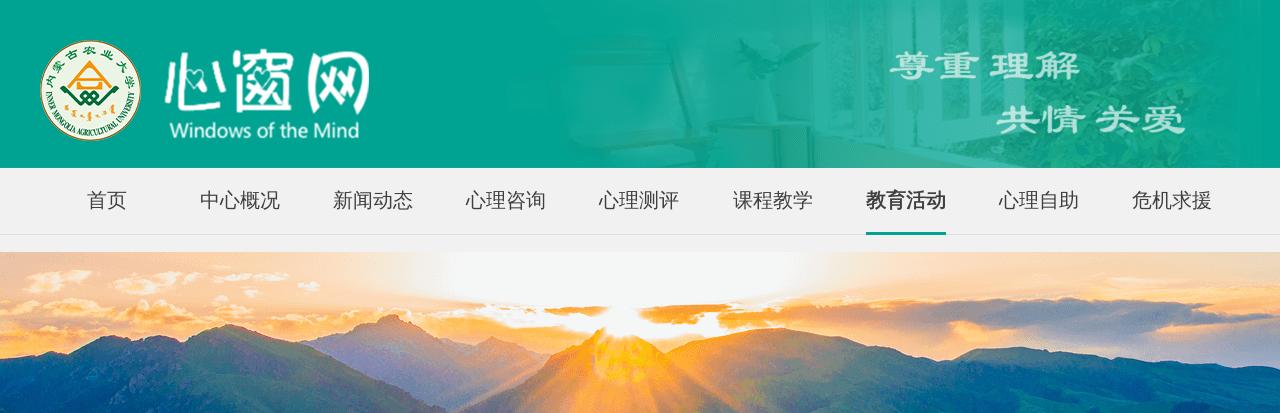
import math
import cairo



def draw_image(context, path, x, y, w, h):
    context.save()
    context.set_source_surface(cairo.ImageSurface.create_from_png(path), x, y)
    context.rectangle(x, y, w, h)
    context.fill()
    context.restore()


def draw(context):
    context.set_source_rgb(241 / 255, 241 / 255, 241 / 255)
    context.paint()
    draw_image(context, "images/1.png", 0, 0, 1280, 168)
    draw_image(context, "images/2.png", 40, 40, 329, 101)
    context.set_source_rgb(218 / 255, 223 / 255, 231 / 255)
    context.rectangle(0, 234, 1280, 1)
    context.fill()
    context.set_source_rgb(0, 163 / 255, 146 / 255)
    context.rectangle(866, 232, 80, 3)
    context.fill()
    draw_image(context, "images/3.png", 0, 252, 1280, 161)
    context.select_font_face("WenQuanYi Zen Hei Medium")
    context.set_font_size(20)
    context.set_source_rgb(63 / 255, 63 / 255, 63 / 255)
    context.move_to(87, 207)
    context.show_text("首页")
    context.move_to(200, 207)
    context.show_text("中心概况")
    context.move_to(333, 207)
    context.show_text("新闻动态")
    context.move_to(466, 207)
    context.show_text("心理咨询")
    context.move_to(599, 207)
    context.show_text("心理测评")
    context.move_to(733, 207)
    context.show_text("课程教学")
    context.select_font_face("WenQuanYi Zen Hei", cairo.FontSlant.NORMAL, cairo.FontWeight.BOLD)
    context.move_to(866, 207)
    context.show_text("教育活动")
    context.select_font_face("WenQuanYi Zen Hei Medium")
    context.move_to(999, 207)
    context.show_text("心理自助")
    context.move_to(1132, 207)
    context.show_text("危机求援")


surface = cairo.ImageSurface(cairo.Format.RGB24, 1280, 413)
context = cairo.Context(surface)
options = cairo.FontOptions()
options.set_hint_metrics(cairo.HintMetrics.OFF)
options.set_hint_style(cairo.HintStyle.NONE)
context.set_font_options(options)
context.set_miter_limit(4)
draw(context)
surface.write_to_png("out.png")
